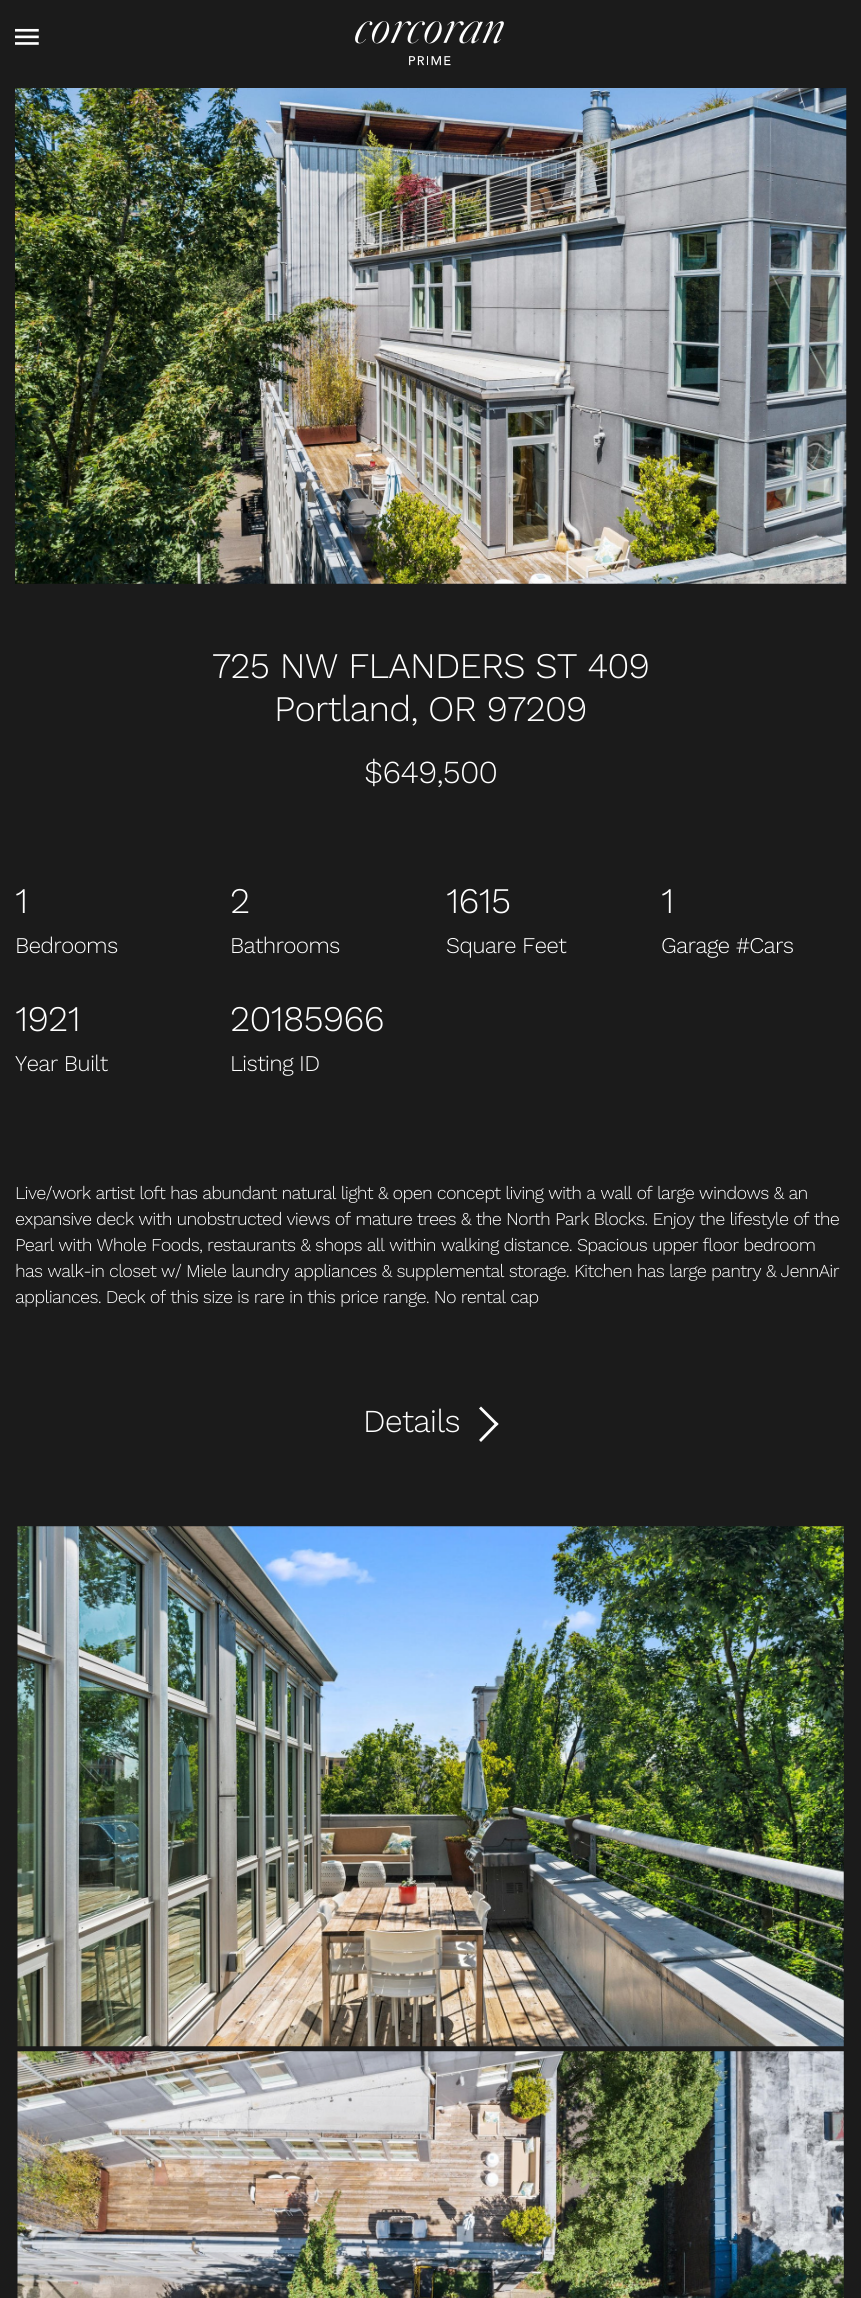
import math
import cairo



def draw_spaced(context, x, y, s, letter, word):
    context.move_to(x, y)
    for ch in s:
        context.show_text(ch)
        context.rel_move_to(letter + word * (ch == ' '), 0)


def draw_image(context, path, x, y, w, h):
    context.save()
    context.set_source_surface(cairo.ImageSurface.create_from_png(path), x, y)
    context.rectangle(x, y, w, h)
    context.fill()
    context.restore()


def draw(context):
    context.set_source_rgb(27 / 255, 27 / 255, 27 / 255)
    context.paint()
    draw_image(context, "images/1.png", 15, 28, 24, 17)
    draw_image(context, "images/2.png", 355, 21, 149, 45)
    draw_image(context, "images/3.png", 15, 88, 832, 496)
    context.set_source_rgb(1, 1, 1)
    context.new_path()
    context.move_to(481, 1406.5)
    context.line_to(498.5, 1424)
    context.line_to(496.5, 1426)
    context.line_to(479, 1408.5)
    context.close_path()
    context.fill()
    context.new_path()
    context.move_to(479, 1440)
    context.line_to(496.5, 1422)
    context.line_to(498.5, 1424)
    context.line_to(481, 1442)
    context.close_path()
    context.fill()
    draw_image(context, "images/4.png", 17, 1526, 827, 521)
    draw_image(context, "images/5.png", 17, 2051, 827, 247)
    context.select_font_face("Work Sans Light")
    context.set_font_size(36)
    draw_spaced(context, 212, 678, "725 NW FLANDERS ST 409", -0.75, 0)
    draw_spaced(context, 274, 721, "Portland, OR 97209", -0.75, 0)
    context.set_font_size(32)
    draw_spaced(context, 364, 783, "$649,500", -0.75, 0)
    context.set_font_size(36)
    draw_spaced(context, 15, 913, "1", -0.75, 0)
    context.set_font_size(22.5)
    draw_spaced(context, 15, 953, "Bedrooms", -0.75, 0)
    context.set_font_size(36)
    draw_spaced(context, 230, 913, "2", -0.75, 0)
    context.set_font_size(22.5)
    draw_spaced(context, 230, 953, "Bathrooms", -0.75, 0)
    context.set_font_size(36)
    draw_spaced(context, 446, 913, "1615", -0.75, 0)
    context.set_font_size(22.5)
    draw_spaced(context, 446, 953, "Square Feet", -0.75, 0)
    context.set_font_size(36)
    draw_spaced(context, 661, 913, "1", -0.75, 0)
    context.set_font_size(22.5)
    draw_spaced(context, 661, 953, "Garage #Cars", -0.75, 0)
    context.set_font_size(36)
    draw_spaced(context, 15, 1031, "1921", -0.75, 0)
    context.set_font_size(22.5)
    draw_spaced(context, 15, 1071, "Year Built", -0.75, 0)
    context.set_font_size(36)
    draw_spaced(context, 230, 1031, "20185966", -0.75, 0)
    context.set_font_size(22.5)
    draw_spaced(context, 230, 1071, "Listing ID", -0.75, 0)
    context.set_font_size(18)
    draw_spaced(context, 15, 1199, "Live/work artist loft has abundant natural light & open concept living with a wall of large windows & an", -0.75, 0)
    draw_spaced(context, 15, 1225, "expansive deck with unobstructed views of mature trees & the North Park Blocks. Enjoy the lifestyle of the", -0.75, 0)
    draw_spaced(context, 15, 1251, "Pearl with Whole Foods, restaurants & shops all within walking distance. Spacious upper floor bedroom", -0.75, 0)
    draw_spaced(context, 15, 1277, "has walk-in closet w/ Miele laundry appliances & supplemental storage. Kitchen has large pantry & JennAir", -0.75, 0)
    draw_spaced(context, 15, 1303, "appliances. Deck of this size is rare in this price range. No rental cap", -0.75, 0)
    context.set_font_size(32)
    draw_spaced(context, 363, 1432, "Details", -0.75, 0)


surface = cairo.ImageSurface(cairo.Format.RGB24, 861, 2298)
context = cairo.Context(surface)
options = cairo.FontOptions()
options.set_hint_metrics(cairo.HintMetrics.OFF)
options.set_hint_style(cairo.HintStyle.NONE)
context.set_font_options(options)
context.set_miter_limit(4)
draw(context)
surface.write_to_png("out.png")
